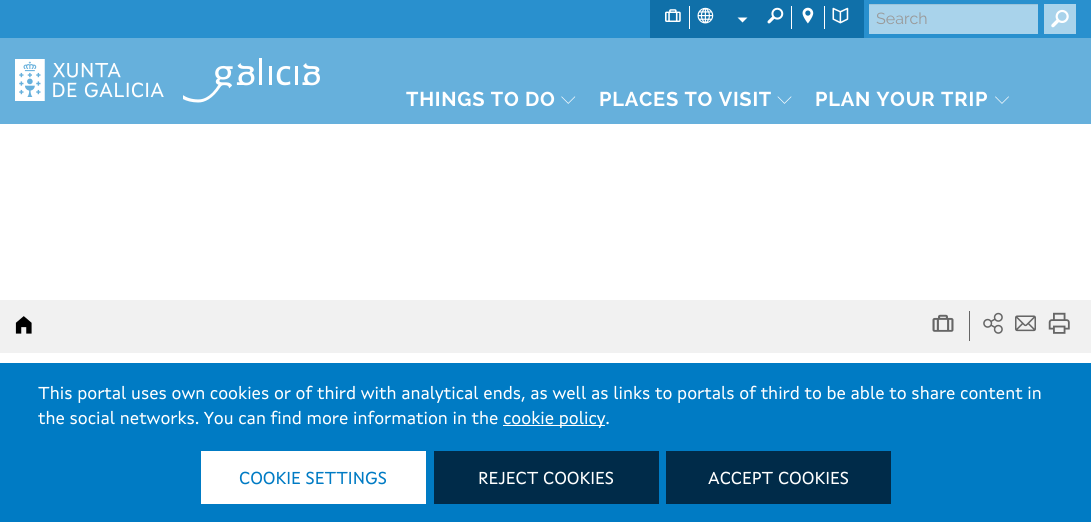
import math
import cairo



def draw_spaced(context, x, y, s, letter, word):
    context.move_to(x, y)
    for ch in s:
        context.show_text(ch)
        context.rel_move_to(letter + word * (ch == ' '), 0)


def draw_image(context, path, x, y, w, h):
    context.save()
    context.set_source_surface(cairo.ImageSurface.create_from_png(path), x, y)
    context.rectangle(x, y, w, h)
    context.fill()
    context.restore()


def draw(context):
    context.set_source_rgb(1, 1, 1)
    context.paint()
    context.set_source_rgb(102 / 255, 176 / 255, 220 / 255)
    context.rectangle(0, 38, 1091, 86)
    context.fill()
    context.set_source_rgb(41 / 255, 144 / 255, 206 / 255)
    context.rectangle(0, 0, 1091, 38)
    context.fill()
    context.set_source_rgb(16 / 255, 112 / 255, 169 / 255)
    context.rectangle(650, 0, 214, 38)
    context.fill()
    context.set_source_rgb(1, 1, 1)
    context.rectangle(689, 6, 1, 23)
    context.fill()
    draw_image(context, "images/1.png", 665, 9, 16, 13)
    draw_image(context, "images/2.png", 697, 7, 17, 17)
    context.new_path()
    context.move_to(737.5, 17.5)
    context.line_to(747.5, 17.5)
    context.line_to(742.5, 22.5)
    context.close_path()
    context.fill()
    context.rectangle(791, 6, 1, 23)
    context.fill()
    draw_image(context, "images/3.png", 767, 7, 17, 17)
    context.rectangle(824, 6, 1, 23)
    context.fill()
    draw_image(context, "images/4.png", 802, 7, 12, 17)
    draw_image(context, "images/5.png", 832, 7, 17, 17)
    context.set_source_rgb(169 / 255, 211 / 255, 235 / 255)
    context.rectangle(869, 5, 169, 29)
    context.fill()
    context.set_source_rgb(156 / 255, 195 / 255, 217 / 255)
    context.rectangle(869, 4, 169, 1)
    context.fill()
    context.set_source_rgb(169 / 255, 211 / 255, 235 / 255)
    context.rectangle(1044, 4, 32, 30)
    context.fill()
    draw_image(context, "images/6.png", 1051, 9, 18, 19)
    draw_image(context, "images/7.png", 15, 59, 149, 42)
    draw_image(context, "images/8.png", 183, 58, 137, 45)
    draw_image(context, "images/9.png", 561, 96, 15, 8)
    draw_image(context, "images/10.png", 777, 96, 15, 8)
    draw_image(context, "images/11.png", 995, 96, 14, 8)
    context.set_source_rgb(241 / 255, 241 / 255, 241 / 255)
    context.rectangle(0, 300, 1091, 53)
    context.fill()
    draw_image(context, "images/12.png", 15, 316, 17, 18)
    context.set_source_rgb(102 / 255, 102 / 255, 102 / 255)
    context.rectangle(969, 311, 1, 30)
    context.fill()
    draw_image(context, "images/13.png", 932, 314, 22, 18)
    draw_image(context, "images/14.png", 983, 312, 20, 22)
    draw_image(context, "images/15.png", 1015, 315, 21, 17)
    draw_image(context, "images/16.png", 1048, 312, 22, 22)
    context.set_source_rgb(0, 123 / 255, 196 / 255)
    context.rectangle(0, 363, 1091, 159)
    context.fill()
    context.set_source_rgb(1, 1, 1)
    context.rectangle(503, 425, 102, 1)
    context.fill()
    context.rectangle(201, 451, 225, 53)
    context.fill()
    context.set_source_rgb(0, 43 / 255, 73 / 255)
    context.rectangle(434, 451, 225, 53)
    context.fill()
    context.rectangle(666, 451, 225, 53)
    context.fill()
    context.select_font_face("Raleway")
    context.set_font_size(16)
    context.set_source_rgb(153 / 255, 153 / 255, 153 / 255)
    context.move_to(876, 24)
    context.show_text("Search")
    context.select_font_face("Raleway", cairo.FontSlant.NORMAL, cairo.FontWeight.BOLD)
    context.set_font_size(20)
    context.set_source_rgb(1, 1, 1)
    draw_spaced(context, 406, 106, "THINGS TO DO", 0.75, 0)
    draw_spaced(context, 599, 106, "PLACES TO VISIT", 0.75, 0)
    draw_spaced(context, 815, 106, "PLAN YOUR TRIP", 0.75, 0)
    context.select_font_face("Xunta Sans")
    context.set_font_size(17.5)
    context.move_to(38, 399)
    context.show_text("This portal uses own cookies or of third with analytical ends, as well as links to portals of third to be able to share content in")
    context.move_to(38, 424)
    context.show_text("the social networks. You can find more information in the")
    context.move_to(503, 424)
    context.show_text("cookie policy.")
    context.set_source_rgb(0, 123 / 255, 196 / 255)
    context.move_to(239, 484)
    context.show_text("COOKIE SETTINGS")
    context.set_source_rgb(1, 1, 1)
    context.move_to(478, 484)
    context.show_text("REJECT COOKIES")
    context.move_to(708, 484)
    context.show_text("ACCEPT COOKIES")


surface = cairo.ImageSurface(cairo.Format.RGB24, 1091, 522)
context = cairo.Context(surface)
options = cairo.FontOptions()
options.set_hint_metrics(cairo.HintMetrics.OFF)
options.set_hint_style(cairo.HintStyle.NONE)
context.set_font_options(options)
context.set_miter_limit(4)
draw(context)
surface.write_to_png("out.png")
